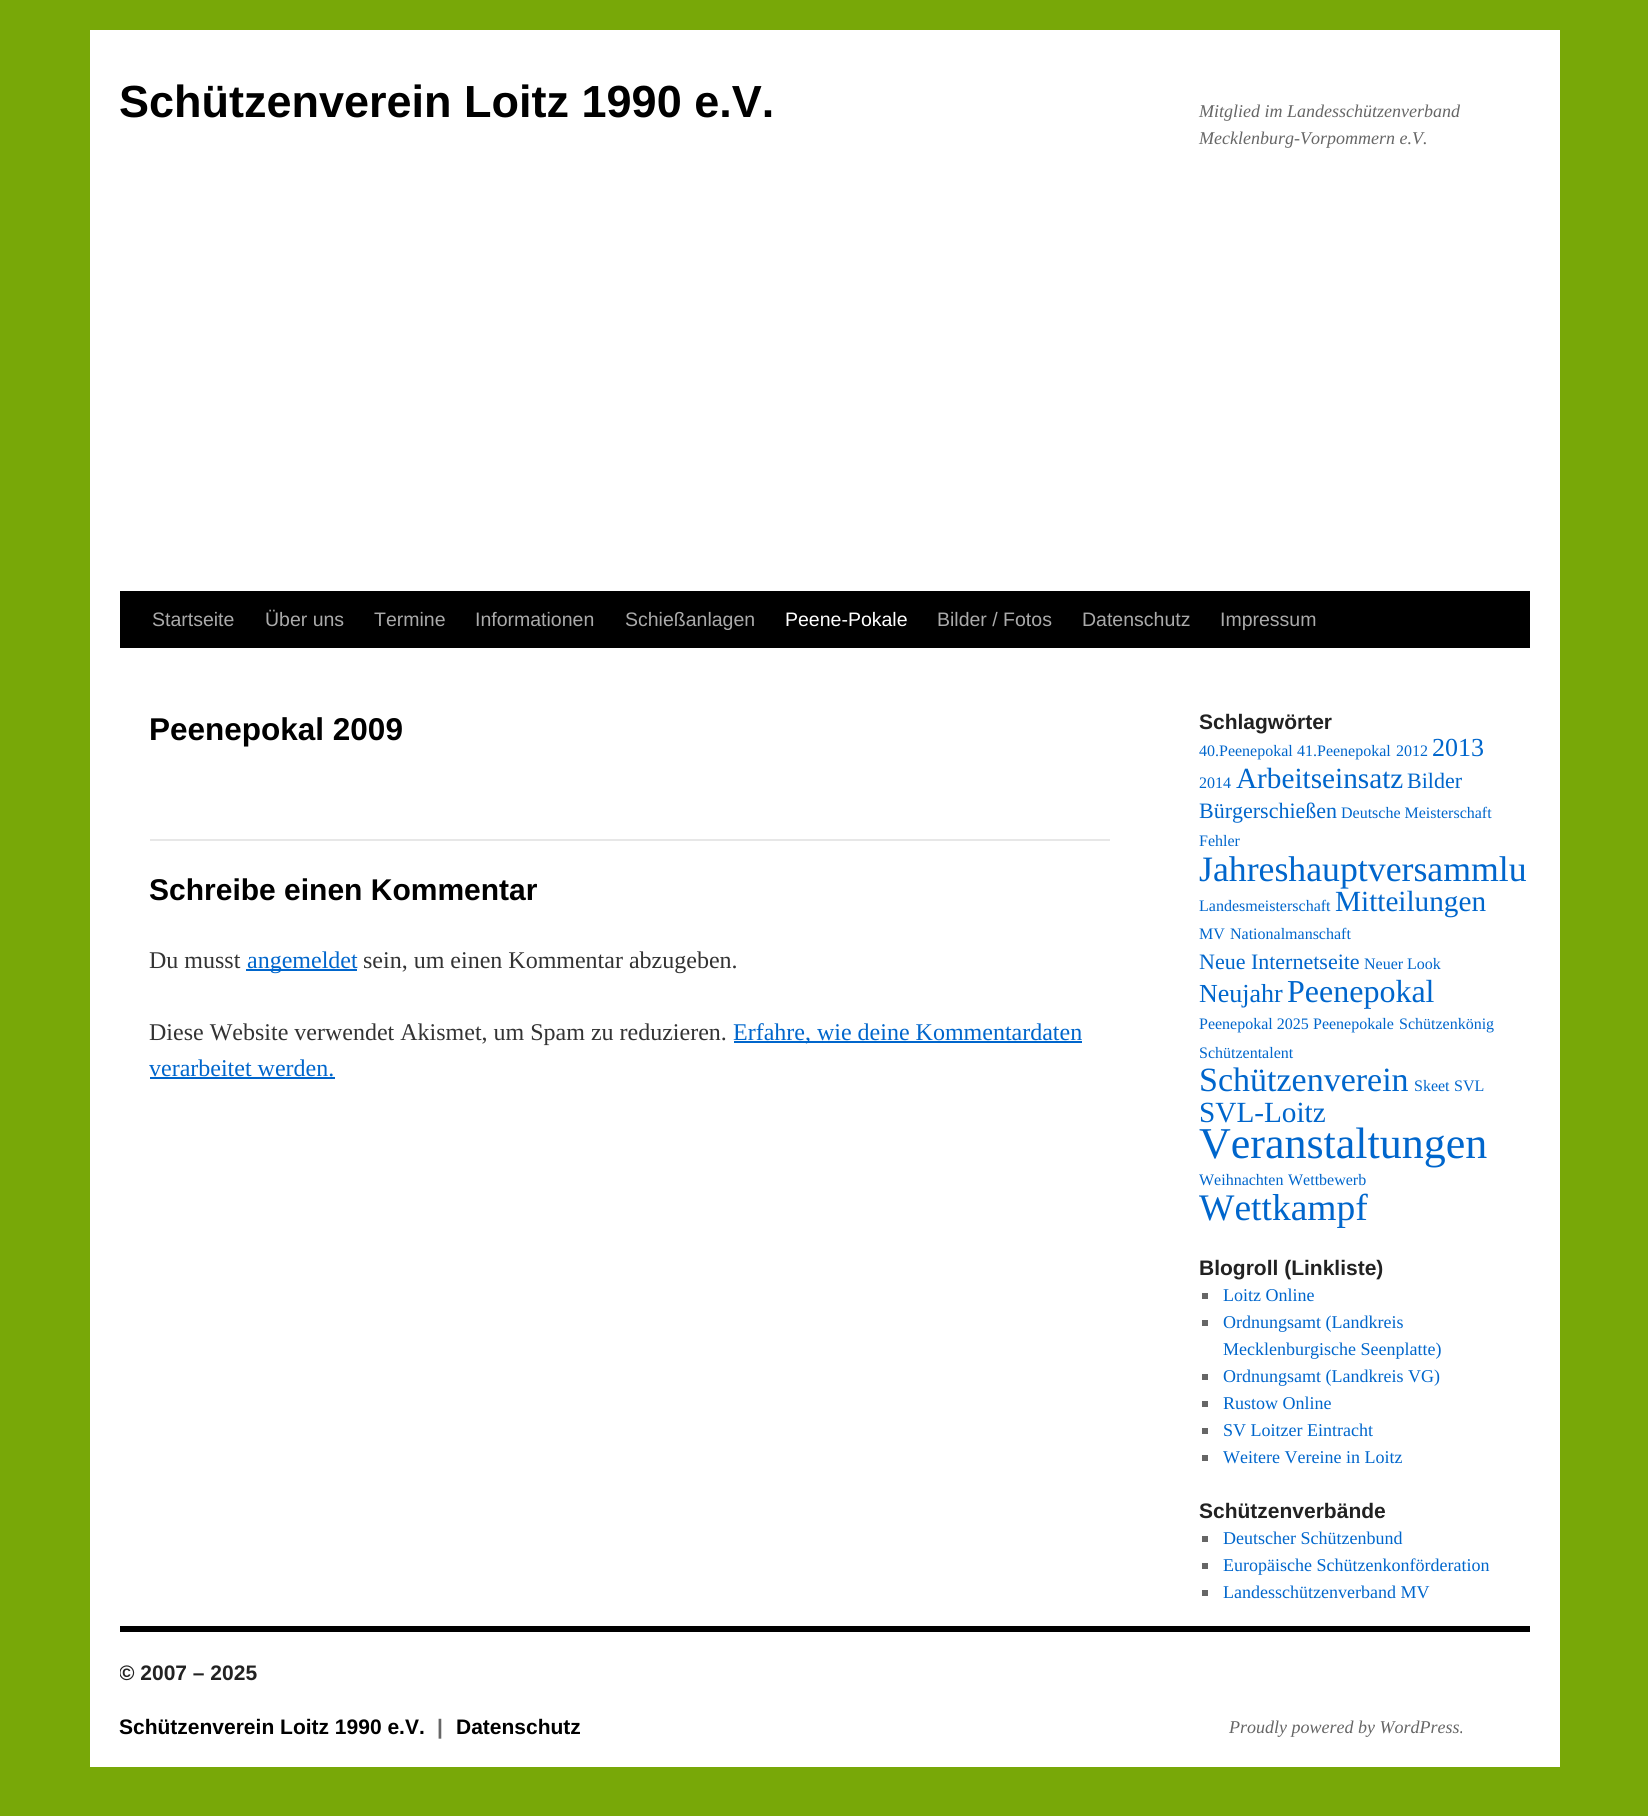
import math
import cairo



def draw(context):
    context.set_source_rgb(120 / 255, 168 / 255, 8 / 255)
    context.paint()
    context.set_source_rgb(1, 1, 1)
    context.rectangle(90, 30, 1470, 1737)
    context.fill()
    context.set_source_rgb(0, 0, 0)
    context.rectangle(120, 591, 1410, 57)
    context.fill()
    context.set_source_rgb(231 / 255, 231 / 255, 231 / 255)
    context.rectangle(150, 839, 960, 2)
    context.fill()
    context.set_source_rgb(0, 102 / 255, 204 / 255)
    context.rectangle(246, 969, 111, 2)
    context.fill()
    context.rectangle(734, 1041, 348, 2)
    context.fill()
    context.rectangle(150, 1077, 185, 2)
    context.fill()
    context.set_source_rgb(102 / 255, 102 / 255, 102 / 255)
    context.rectangle(1202, 1293, 6, 6)
    context.fill()
    context.rectangle(1202, 1320, 6, 6)
    context.fill()
    context.rectangle(1202, 1374, 6, 6)
    context.fill()
    context.rectangle(1202, 1401, 6, 6)
    context.fill()
    context.rectangle(1202, 1428, 6, 6)
    context.fill()
    context.rectangle(1202, 1455, 6, 6)
    context.fill()
    context.rectangle(1202, 1536, 6, 6)
    context.fill()
    context.rectangle(1202, 1563, 6, 6)
    context.fill()
    context.rectangle(1202, 1590, 6, 6)
    context.fill()
    context.set_source_rgb(0, 0, 0)
    context.rectangle(120, 1626, 1410, 6)
    context.fill()
    context.select_font_face("Liberation Sans", cairo.FontSlant.NORMAL, cairo.FontWeight.BOLD)
    context.set_font_size(45)
    context.move_to(119, 117)
    context.show_text("Schützenverein Loitz 1990 e.V.")
    context.select_font_face("Liberation Serif", cairo.FontSlant.ITALIC)
    context.set_font_size(18)
    context.set_source_rgb(102 / 255, 102 / 255, 102 / 255)
    context.move_to(1199, 117)
    context.show_text("Mitglied im Landesschützenverband")
    context.move_to(1199, 144)
    context.show_text("Mecklenburg-Vorpommern e.V.")
    context.select_font_face("Liberation Sans")
    context.set_font_size(19.5)
    context.set_source_rgb(170 / 255, 170 / 255, 170 / 255)
    context.move_to(152, 626)
    context.show_text("Startseite")
    context.move_to(265, 626)
    context.show_text("Über uns")
    context.move_to(374, 626)
    context.show_text("Termine")
    context.move_to(475, 626)
    context.show_text("Informationen")
    context.move_to(625, 626)
    context.show_text("Schießanlagen")
    context.set_source_rgb(1, 1, 1)
    context.move_to(785, 626)
    context.show_text("Peene-Pokale")
    context.set_source_rgb(170 / 255, 170 / 255, 170 / 255)
    context.move_to(937, 626)
    context.show_text("Bilder / Fotos")
    context.move_to(1082, 626)
    context.show_text("Datenschutz")
    context.move_to(1220, 626)
    context.show_text("Impressum")
    context.select_font_face("Liberation Sans", cairo.FontSlant.NORMAL, cairo.FontWeight.BOLD)
    context.set_font_size(31.5)
    context.set_source_rgb(0, 0, 0)
    context.move_to(149, 740)
    context.show_text("Peenepokal 2009")
    context.set_font_size(30)
    context.move_to(149, 900)
    context.show_text("Schreibe einen Kommentar")
    context.select_font_face("Liberation Serif")
    context.set_font_size(24)
    context.set_source_rgb(51 / 255, 51 / 255, 51 / 255)
    context.move_to(149, 968)
    context.show_text("Du musst")
    context.set_source_rgb(0, 102 / 255, 204 / 255)
    context.move_to(247, 968)
    context.show_text("angemeldet")
    context.set_source_rgb(51 / 255, 51 / 255, 51 / 255)
    context.move_to(363, 968)
    context.show_text("sein, um einen Kommentar abzugeben.")
    context.move_to(149, 1040)
    context.show_text("Diese Website verwendet Akismet, um Spam zu reduzieren.")
    context.set_source_rgb(0, 102 / 255, 204 / 255)
    context.move_to(733, 1040)
    context.show_text("Erfahre, wie deine Kommentardaten")
    context.move_to(149, 1076)
    context.show_text("verarbeitet werden.")
    context.select_font_face("Liberation Sans", cairo.FontSlant.NORMAL, cairo.FontWeight.BOLD)
    context.set_font_size(21)
    context.set_source_rgb(34 / 255, 34 / 255, 34 / 255)
    context.move_to(1199, 729)
    context.show_text("Schlagwörter")
    context.select_font_face("Liberation Serif")
    context.set_font_size(16)
    context.set_source_rgb(0, 102 / 255, 204 / 255)
    context.move_to(1199, 756)
    context.show_text("40.Peenepokal")
    context.move_to(1297, 756)
    context.show_text("41.Peenepokal")
    context.move_to(1396, 756)
    context.show_text("2012")
    context.set_font_size(26)
    context.move_to(1432, 756)
    context.show_text("2013")
    context.set_font_size(16)
    context.move_to(1199, 788)
    context.show_text("2014")
    context.set_font_size(29.25)
    context.move_to(1236, 788)
    context.show_text("Arbeitseinsatz")
    context.set_font_size(22)
    context.move_to(1407, 788)
    context.show_text("Bilder")
    context.move_to(1199, 818)
    context.show_text("Bürgerschießen")
    context.set_font_size(16)
    context.move_to(1341, 818)
    context.show_text("Deutsche Meisterschaft")
    context.move_to(1199, 846)
    context.show_text("Fehler")
    context.set_font_size(35.75)
    context.move_to(1199, 881)
    context.show_text("Jahreshauptversammlu")
    context.set_font_size(16)
    context.move_to(1199, 911)
    context.show_text("Landesmeisterschaft")
    context.set_font_size(29.25)
    context.move_to(1335, 911)
    context.show_text("Mitteilungen")
    context.set_font_size(16)
    context.move_to(1199, 939)
    context.show_text("MV")
    context.move_to(1230, 939)
    context.show_text("Nationalmanschaft")
    context.set_font_size(22)
    context.move_to(1199, 969)
    context.show_text("Neue Internetseite")
    context.set_font_size(16)
    context.move_to(1364, 969)
    context.show_text("Neuer Look")
    context.set_font_size(26)
    context.move_to(1199, 1002)
    context.show_text("Neujahr")
    context.set_font_size(32)
    context.move_to(1287, 1002)
    context.show_text("Peenepokal")
    context.set_font_size(16)
    context.move_to(1199, 1029)
    context.show_text("Peenepokal 2025")
    context.move_to(1313, 1029)
    context.show_text("Peenepokale")
    context.move_to(1399, 1029)
    context.show_text("Schützenkönig")
    context.move_to(1199, 1058)
    context.show_text("Schützentalent")
    context.set_font_size(34)
    context.move_to(1199, 1091)
    context.show_text("Schützenverein")
    context.set_font_size(16)
    context.move_to(1414, 1091)
    context.show_text("Skeet")
    context.move_to(1454, 1091)
    context.show_text("SVL")
    context.set_font_size(29.25)
    context.move_to(1199, 1122)
    context.show_text("SVL-Loitz")
    context.set_font_size(44)
    context.move_to(1199, 1158)
    context.show_text("Veranstaltungen")
    context.set_font_size(16)
    context.move_to(1199, 1185)
    context.show_text("Weihnachten")
    context.move_to(1288, 1185)
    context.show_text("Wettbewerb")
    context.set_font_size(37.5)
    context.move_to(1199, 1220)
    context.show_text("Wettkampf")
    context.select_font_face("Liberation Sans", cairo.FontSlant.NORMAL, cairo.FontWeight.BOLD)
    context.set_font_size(21)
    context.set_source_rgb(34 / 255, 34 / 255, 34 / 255)
    context.move_to(1199, 1275)
    context.show_text("Blogroll (Linkliste)")
    context.select_font_face("Liberation Serif")
    context.set_font_size(18)
    context.set_source_rgb(0, 102 / 255, 204 / 255)
    context.move_to(1223, 1301)
    context.show_text("Loitz Online")
    context.move_to(1223, 1328)
    context.show_text("Ordnungsamt (Landkreis")
    context.move_to(1223, 1355)
    context.show_text("Mecklenburgische Seenplatte)")
    context.move_to(1223, 1382)
    context.show_text("Ordnungsamt (Landkreis VG)")
    context.move_to(1223, 1409)
    context.show_text("Rustow Online")
    context.move_to(1223, 1436)
    context.show_text("SV Loitzer Eintracht")
    context.move_to(1223, 1463)
    context.show_text("Weitere Vereine in Loitz")
    context.select_font_face("Liberation Sans", cairo.FontSlant.NORMAL, cairo.FontWeight.BOLD)
    context.set_font_size(21)
    context.set_source_rgb(34 / 255, 34 / 255, 34 / 255)
    context.move_to(1199, 1518)
    context.show_text("Schützenverbände")
    context.select_font_face("Liberation Serif")
    context.set_font_size(18)
    context.set_source_rgb(0, 102 / 255, 204 / 255)
    context.move_to(1223, 1544)
    context.show_text("Deutscher Schützenbund")
    context.move_to(1223, 1571)
    context.show_text("Europäische Schützenkonförderation")
    context.move_to(1223, 1598)
    context.show_text("Landesschützenverband MV")
    context.save()
    context.rectangle(120, 1659, 1410, 54)
    context.clip()
    context.select_font_face("Liberation Sans", cairo.FontSlant.NORMAL, cairo.FontWeight.BOLD)
    context.set_font_size(21)
    context.set_source_rgb(34 / 255, 34 / 255, 34 / 255)
    context.move_to(119, 1680)
    context.show_text("© 2007 – 2025")
    context.restore()
    context.select_font_face("Liberation Sans", cairo.FontSlant.NORMAL, cairo.FontWeight.BOLD)
    context.set_font_size(21)
    context.set_source_rgb(0, 0, 0)
    context.move_to(119, 1734)
    context.show_text("Schützenverein Loitz 1990 e.V.")
    context.set_source_rgb(102 / 255, 102 / 255, 102 / 255)
    context.move_to(437, 1734)
    context.show_text("|")
    context.set_source_rgb(0, 0, 0)
    context.move_to(456, 1734)
    context.show_text("Datenschutz")
    context.select_font_face("Liberation Serif", cairo.FontSlant.ITALIC)
    context.set_font_size(18)
    context.set_source_rgb(102 / 255, 102 / 255, 102 / 255)
    context.move_to(1229, 1733)
    context.show_text("Proudly powered by WordPress.")


surface = cairo.ImageSurface(cairo.Format.RGB24, 1648, 1816)
context = cairo.Context(surface)
options = cairo.FontOptions()
options.set_hint_metrics(cairo.HintMetrics.OFF)
options.set_hint_style(cairo.HintStyle.NONE)
context.set_font_options(options)
context.set_miter_limit(4)
draw(context)
surface.write_to_png("out.png")
